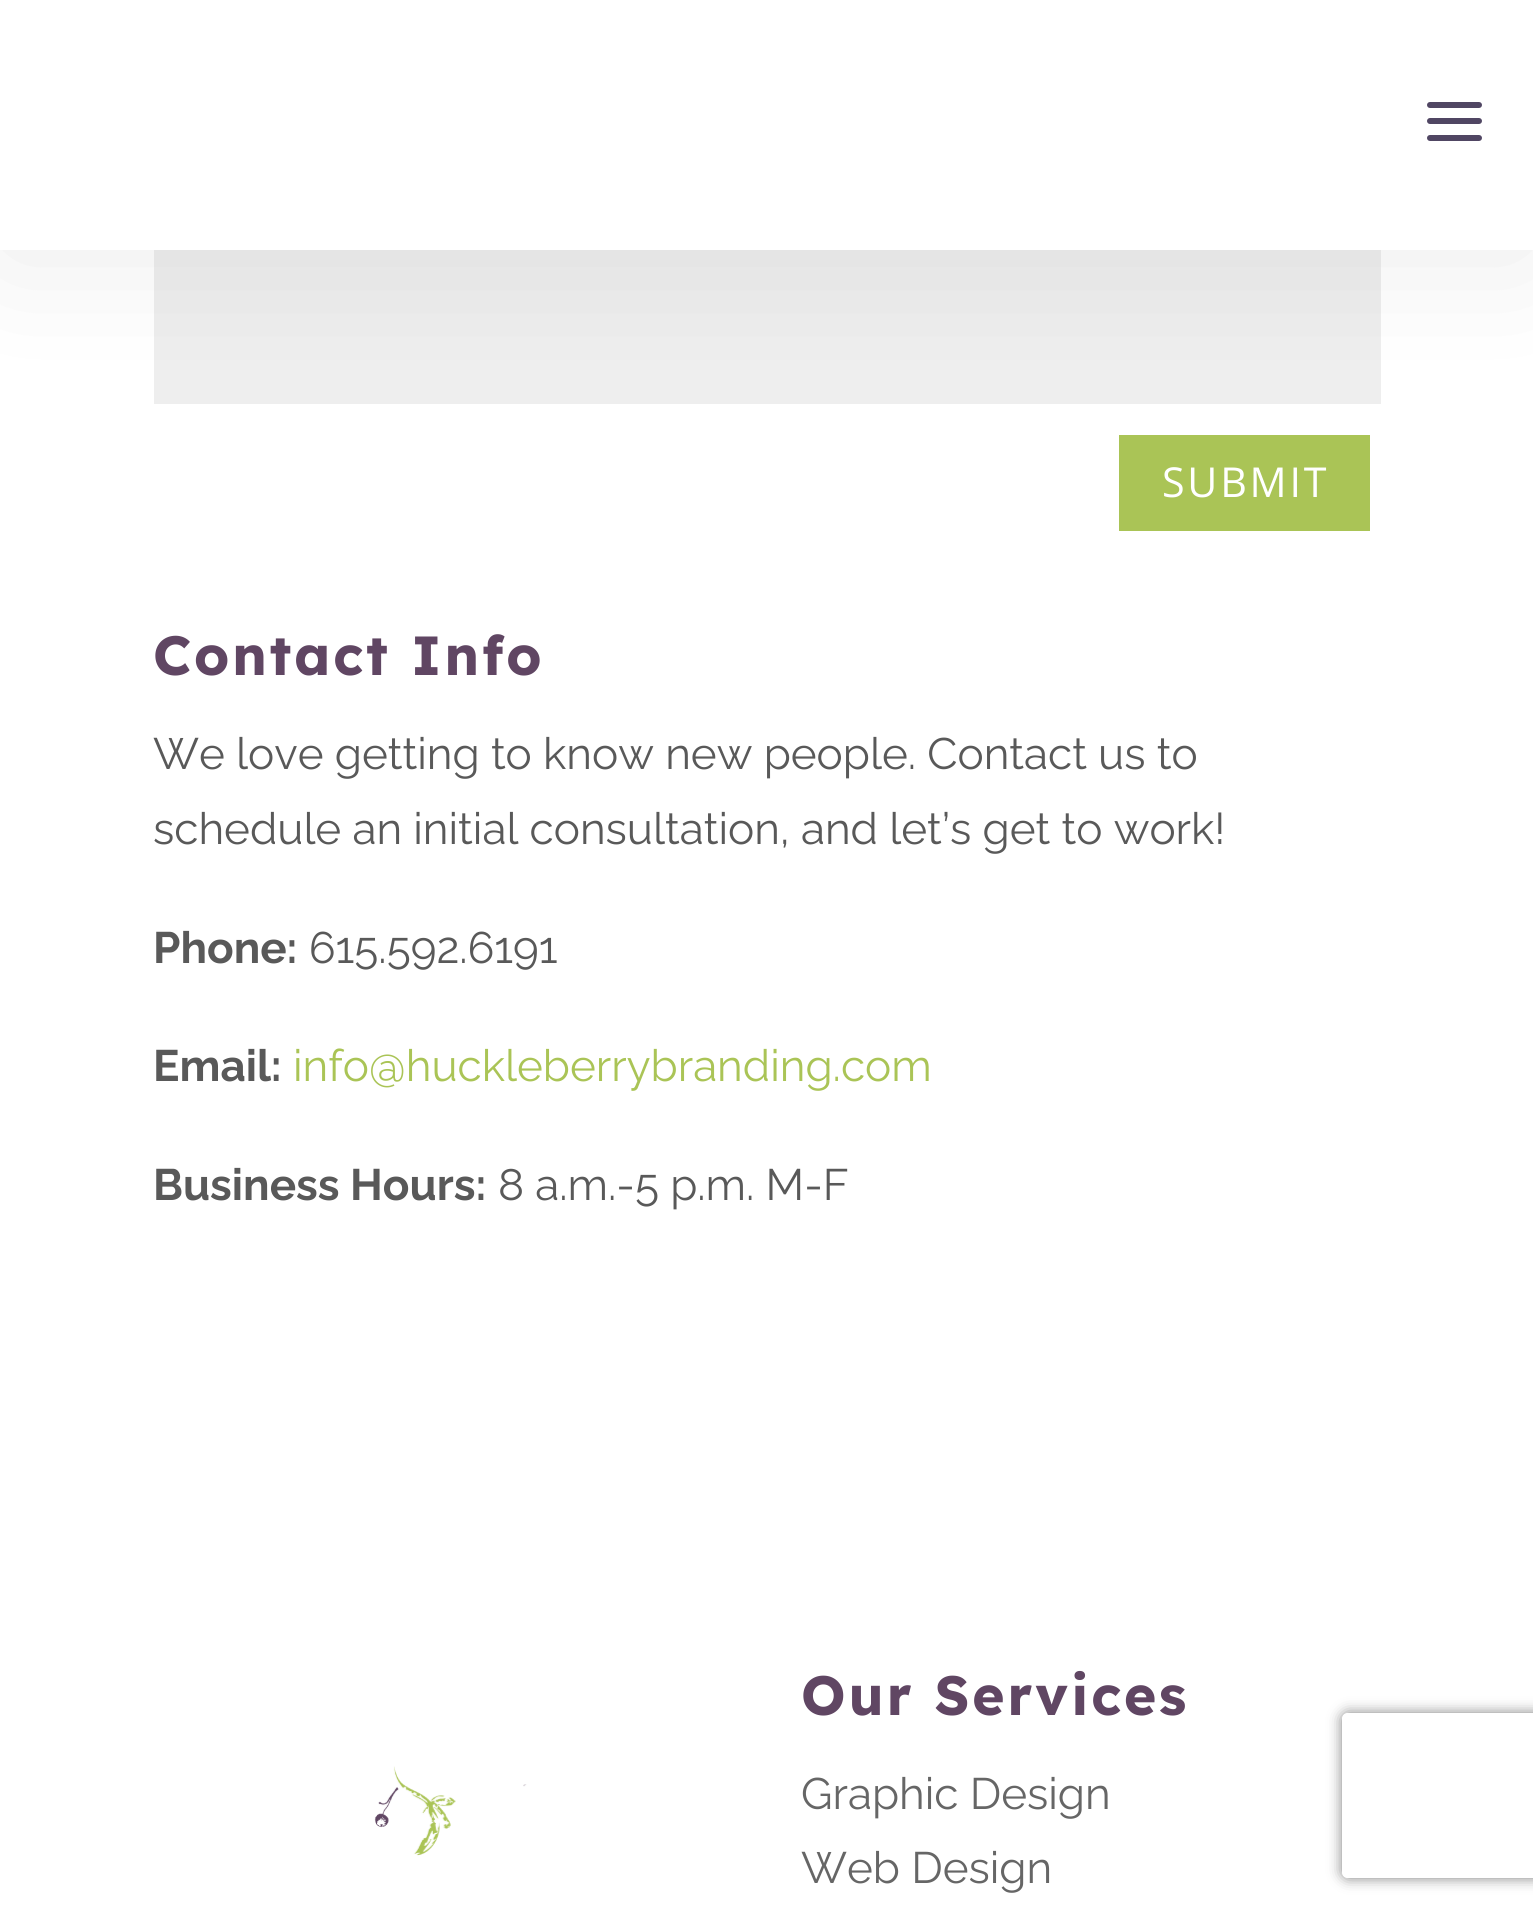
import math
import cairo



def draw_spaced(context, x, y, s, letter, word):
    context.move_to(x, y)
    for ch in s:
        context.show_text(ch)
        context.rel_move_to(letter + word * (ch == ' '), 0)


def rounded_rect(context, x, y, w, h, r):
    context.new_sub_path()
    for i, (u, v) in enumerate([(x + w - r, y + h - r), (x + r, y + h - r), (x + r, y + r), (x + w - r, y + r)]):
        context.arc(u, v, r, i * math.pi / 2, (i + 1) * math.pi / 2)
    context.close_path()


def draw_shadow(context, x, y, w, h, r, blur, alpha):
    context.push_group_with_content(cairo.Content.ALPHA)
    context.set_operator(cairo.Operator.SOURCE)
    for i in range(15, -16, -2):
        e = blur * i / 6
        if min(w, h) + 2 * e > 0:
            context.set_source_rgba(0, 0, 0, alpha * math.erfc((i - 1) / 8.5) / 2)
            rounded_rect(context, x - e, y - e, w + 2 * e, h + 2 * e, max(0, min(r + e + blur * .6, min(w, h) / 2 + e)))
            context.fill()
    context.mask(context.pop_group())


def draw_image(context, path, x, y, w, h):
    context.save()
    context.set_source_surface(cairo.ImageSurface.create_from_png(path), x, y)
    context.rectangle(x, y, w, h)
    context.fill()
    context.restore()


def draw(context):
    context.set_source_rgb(1, 1, 1)
    context.paint()
    context.set_source_rgb(238 / 255, 238 / 255, 238 / 255)
    context.rectangle(154, 250, 1227, 154)
    context.fill()
    context.set_source_rgb(170 / 255, 196 / 255, 86 / 255)
    rounded_rect(context, 1113.5, 429.5, 262, 107, 0.5)
    context.fill_preserve()
    context.set_source_rgb(1, 1, 1)
    context.set_line_width(11)
    context.stroke()
    context.set_source_rgb(0, 0, 0)
    draw_shadow(context, 0, 6, 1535, 250, 0, 69, 0.08)
    context.set_source_rgb(1, 1, 1)
    context.rectangle(0, 0, 1533, 250)
    context.fill()
    context.set_source_rgb(80 / 255, 70 / 255, 99 / 255)
    rounded_rect(context, 1427, 118, 55, 6, 3)
    context.fill()
    rounded_rect(context, 1427, 102, 55, 6, 3)
    context.fill()
    rounded_rect(context, 1427, 135, 55, 6, 3)
    context.fill()
    draw_image(context, "images/1.png", 374, 1766, 153, 90)
    context.save()
    context.set_fill_rule(cairo.FillRule.EVEN_ODD)
    context.new_path()
    context.move_to(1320, 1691)
    context.line_to(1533, 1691)
    context.line_to(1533, 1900)
    context.line_to(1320, 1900)
    context.close_path()
    context.move_to(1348, 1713)
    context.line_to(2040, 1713)
    context.curve_to(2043.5, 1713, 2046, 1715.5, 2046, 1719)
    context.line_to(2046, 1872)
    context.curve_to(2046, 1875.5, 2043.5, 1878, 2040, 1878)
    context.line_to(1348, 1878)
    context.curve_to(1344.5, 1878, 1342, 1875.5, 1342, 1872)
    context.line_to(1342, 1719)
    context.curve_to(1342, 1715.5, 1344.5, 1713, 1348, 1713)
    context.close_path()
    context.clip()
    context.set_source_rgb(128 / 255, 128 / 255, 128 / 255)
    draw_shadow(context, 1342, 1713, 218, 165, 6, 7, 1)
    context.restore()
    context.select_font_face("Open Sans")
    context.set_font_size(41.25)
    context.set_source_rgb(1, 1, 1)
    draw_spaced(context, 1162, 497, "SUBMIT", 2.75, 0)
    context.select_font_face("Lexend Deca", cairo.FontSlant.NORMAL, cairo.FontWeight.BOLD)
    context.set_font_size(55)
    context.set_source_rgb(96 / 255, 70 / 255, 99 / 255)
    draw_spaced(context, 153, 675, "Contact Info", 2.75, 0)
    context.select_font_face("Raleway")
    context.set_font_size(44)
    context.set_source_rgb(89 / 255, 89 / 255, 89 / 255)
    context.move_to(153, 769)
    context.show_text("We love getting to know new people. Contact us to")
    context.move_to(153, 844)
    context.show_text("schedule an initial consultation, and let’s get to work!")
    context.select_font_face("Raleway", cairo.FontSlant.NORMAL, cairo.FontWeight.BOLD)
    context.move_to(153, 963)
    context.show_text("Phone:")
    context.select_font_face("Raleway")
    context.move_to(309, 963)
    context.show_text("615.592.6191")
    context.select_font_face("Raleway", cairo.FontSlant.NORMAL, cairo.FontWeight.BOLD)
    context.move_to(153, 1081)
    context.show_text("Email:")
    context.select_font_face("Raleway")
    context.set_source_rgb(170 / 255, 196 / 255, 86 / 255)
    context.move_to(293, 1081)
    context.show_text("info@huckleberrybranding.com")
    context.select_font_face("Raleway", cairo.FontSlant.NORMAL, cairo.FontWeight.BOLD)
    context.set_source_rgb(89 / 255, 89 / 255, 89 / 255)
    context.move_to(153, 1200)
    context.show_text("Business Hours:")
    context.select_font_face("Raleway")
    context.move_to(498, 1200)
    context.show_text("8 a.m.-5 p.m. M-F")
    context.select_font_face("Lexend Deca", cairo.FontSlant.NORMAL, cairo.FontWeight.BOLD)
    context.set_font_size(55)
    context.set_source_rgb(96 / 255, 70 / 255, 99 / 255)
    draw_spaced(context, 801, 1715, "Our Services", 2.75, 0)
    context.select_font_face("Raleway")
    context.set_font_size(44)
    context.set_source_rgb(102 / 255, 102 / 255, 102 / 255)
    context.move_to(801, 1809)
    context.show_text("Graphic Design")
    context.move_to(801, 1883)
    context.show_text("Web Design")


surface = cairo.ImageSurface(cairo.Format.RGB24, 1533, 1915)
context = cairo.Context(surface)
options = cairo.FontOptions()
options.set_hint_metrics(cairo.HintMetrics.OFF)
options.set_hint_style(cairo.HintStyle.NONE)
context.set_font_options(options)
context.set_miter_limit(4)
draw(context)
surface.write_to_png("out.png")
